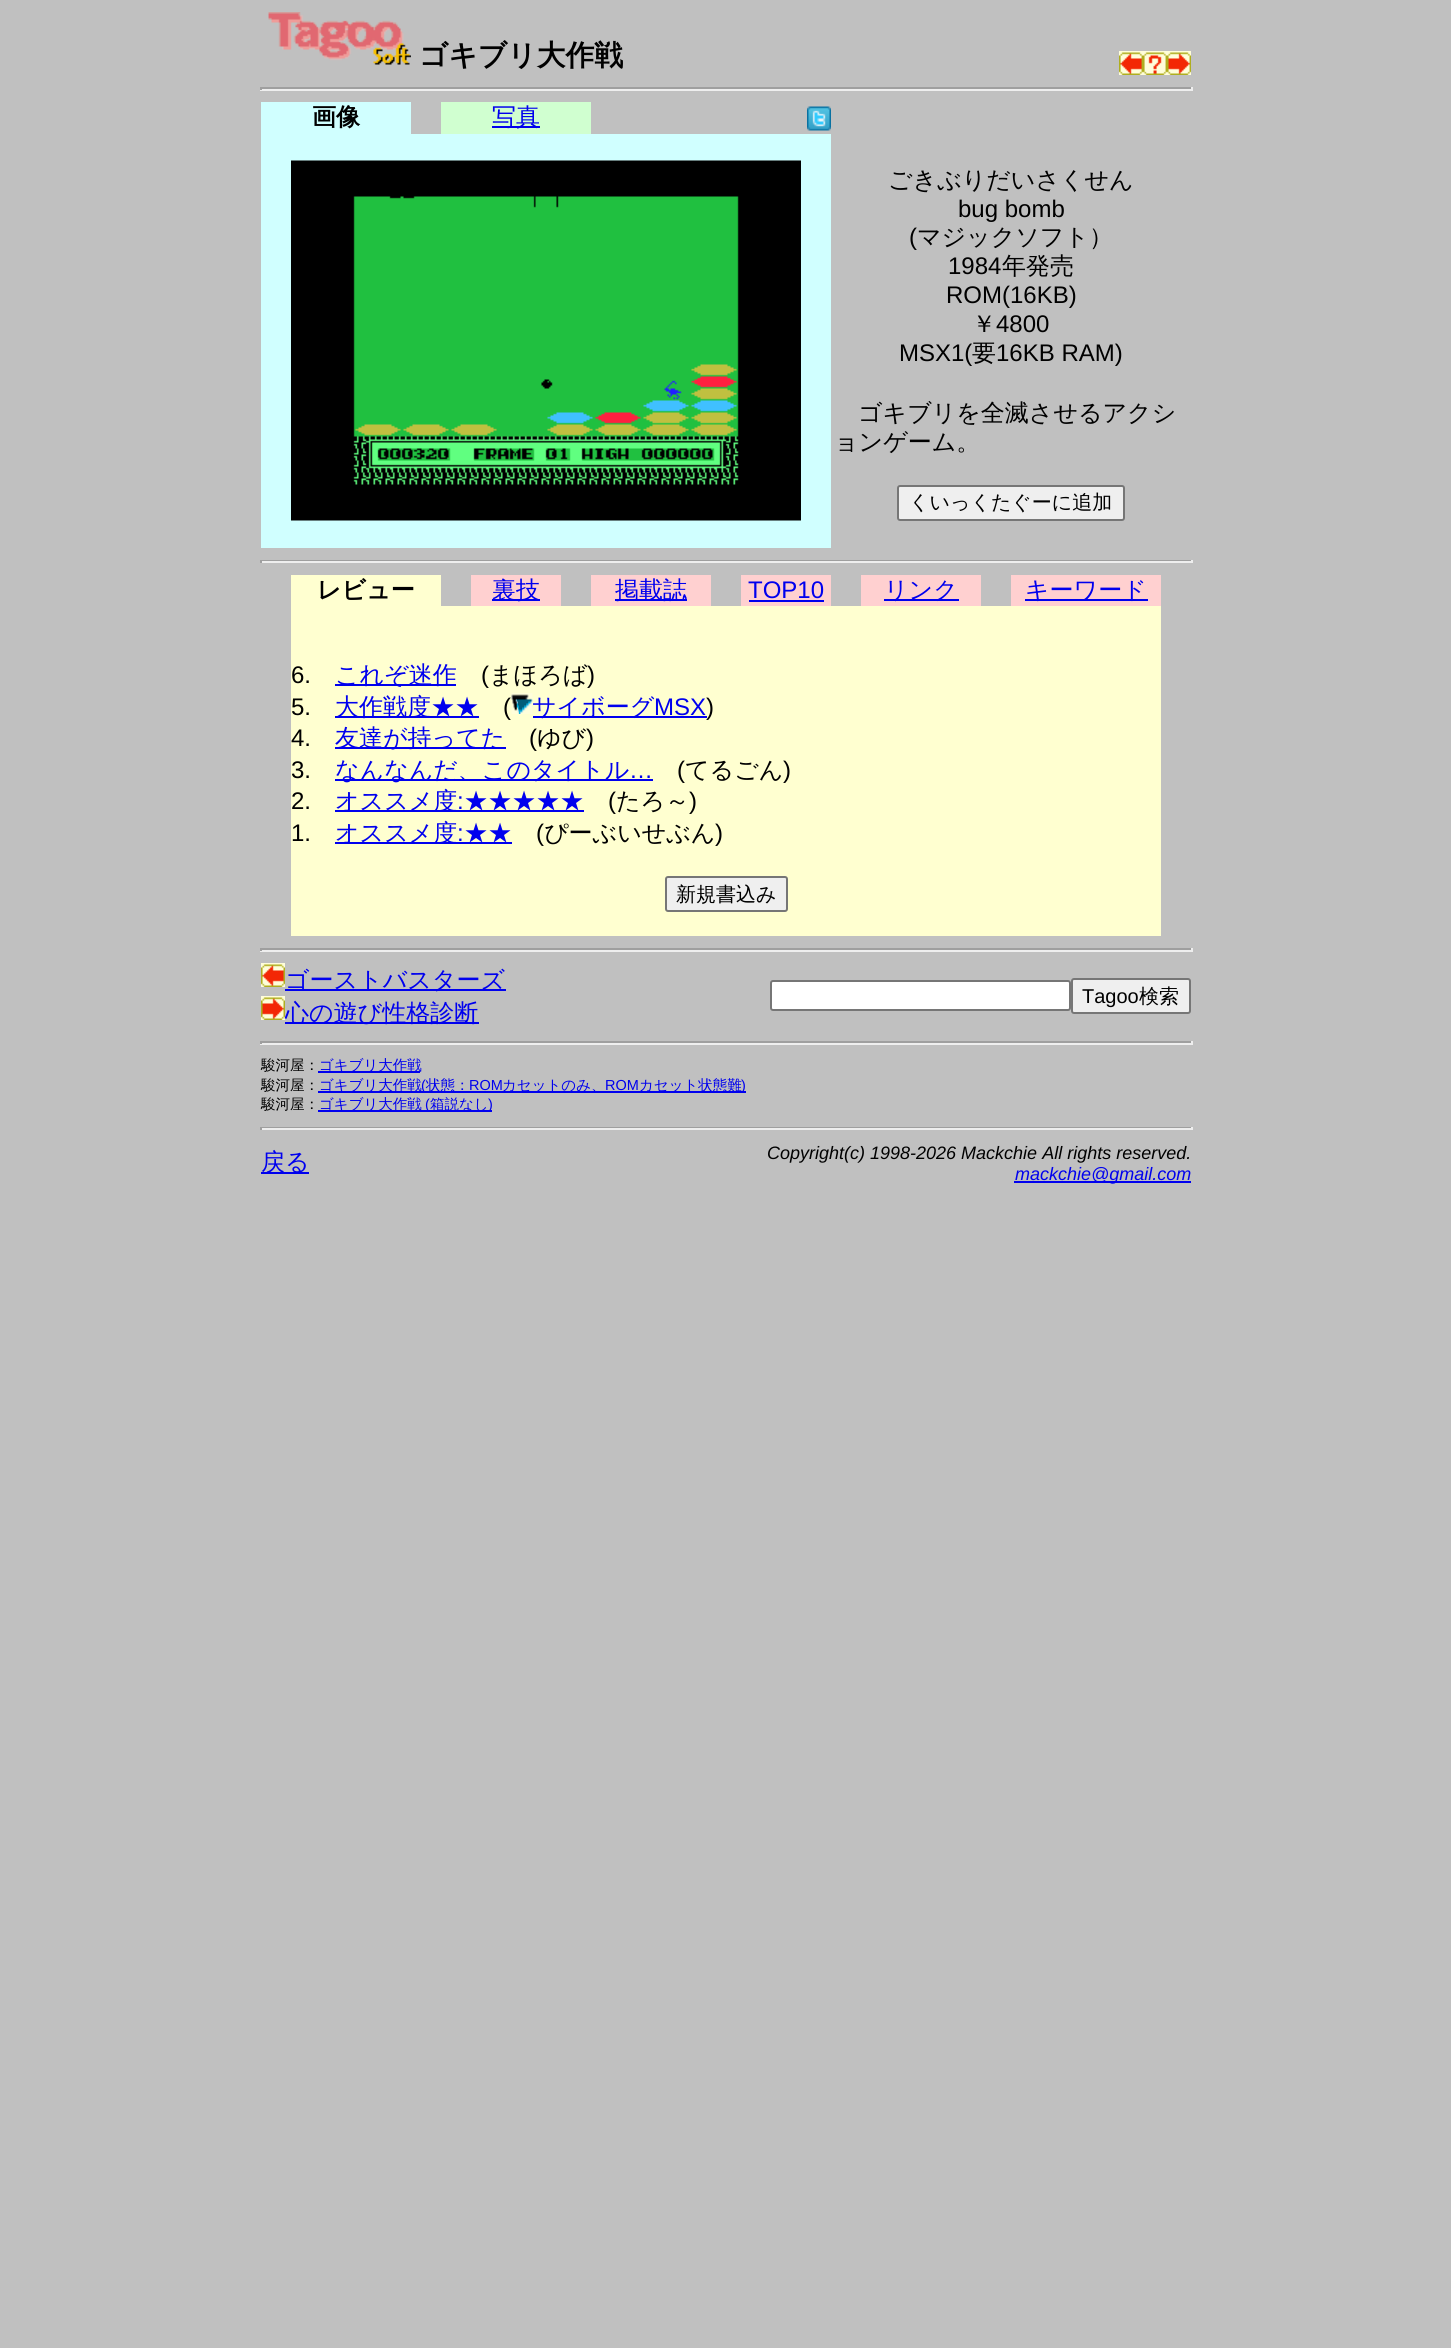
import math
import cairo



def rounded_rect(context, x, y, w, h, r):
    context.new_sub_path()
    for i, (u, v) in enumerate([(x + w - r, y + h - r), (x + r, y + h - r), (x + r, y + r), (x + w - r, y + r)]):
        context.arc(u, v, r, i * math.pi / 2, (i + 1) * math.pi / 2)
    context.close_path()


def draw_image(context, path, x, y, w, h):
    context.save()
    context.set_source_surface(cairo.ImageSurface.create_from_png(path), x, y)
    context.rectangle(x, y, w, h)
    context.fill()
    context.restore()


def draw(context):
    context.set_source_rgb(192 / 255, 192 / 255, 192 / 255)
    context.paint()
    draw_image(context, "images/1.png", 268, 12, 143, 53)
    draw_image(context, "images/2.png", 1119, 51, 24, 24)
    draw_image(context, "images/3.png", 1143, 51, 24, 24)
    draw_image(context, "images/4.png", 1167, 51, 24, 24)
    context.set_source_rgb(159 / 255, 159 / 255, 159 / 255)
    context.rectangle(260, 87, 933, 2)
    context.fill()
    context.set_source_rgb(238 / 255, 238 / 255, 238 / 255)
    context.rectangle(1191, 87, 2, 3)
    context.fill()
    context.rectangle(260, 89, 933, 2)
    context.fill()
    context.set_source_rgb(159 / 255, 159 / 255, 159 / 255)
    context.rectangle(260, 87, 2, 3)
    context.fill()
    context.set_source_rgb(208 / 255, 1, 1)
    context.rectangle(261, 102, 150, 32)
    context.fill()
    context.set_source_rgb(208 / 255, 1, 208 / 255)
    context.rectangle(441, 102, 150, 32)
    context.fill()
    context.set_source_rgb(0, 0, 238 / 255)
    context.rectangle(492, 126, 48, 2)
    context.fill()
    draw_image(context, "images/5.png", 807, 106, 24, 25)
    context.set_source_rgb(208 / 255, 1, 1)
    context.rectangle(261, 134, 570, 414)
    context.fill()
    draw_image(context, "images/6.png", 291, 160, 510, 361)
    context.set_source_rgb(239 / 255, 239 / 255, 239 / 255)
    rounded_rect(context, 898, 486, 226, 34, 2)
    context.fill_preserve()
    context.set_source_rgb(118 / 255, 118 / 255, 118 / 255)
    context.stroke()
    context.set_source_rgb(159 / 255, 159 / 255, 159 / 255)
    context.rectangle(260, 560, 933, 1)
    context.fill()
    context.set_source_rgb(238 / 255, 238 / 255, 238 / 255)
    context.rectangle(1191, 560, 2, 3)
    context.fill()
    context.rectangle(260, 561, 933, 2)
    context.fill()
    context.set_source_rgb(159 / 255, 159 / 255, 159 / 255)
    context.rectangle(260, 560, 2, 3)
    context.fill()
    context.set_source_rgb(1, 1, 208 / 255)
    context.rectangle(291, 575, 150, 31)
    context.fill()
    context.set_source_rgb(1, 208 / 255, 208 / 255)
    context.rectangle(471, 575, 90, 31)
    context.fill()
    context.set_source_rgb(0, 0, 238 / 255)
    context.rectangle(492, 599, 48, 2)
    context.fill()
    context.set_source_rgb(1, 208 / 255, 208 / 255)
    context.rectangle(591, 575, 120, 31)
    context.fill()
    context.set_source_rgb(0, 0, 238 / 255)
    context.rectangle(615, 599, 72, 2)
    context.fill()
    context.set_source_rgb(1, 208 / 255, 208 / 255)
    context.rectangle(741, 575, 90, 31)
    context.fill()
    context.set_source_rgb(0, 0, 238 / 255)
    context.rectangle(749, 600, 75, 2)
    context.fill()
    context.set_source_rgb(1, 208 / 255, 208 / 255)
    context.rectangle(861, 575, 120, 31)
    context.fill()
    context.set_source_rgb(0, 0, 238 / 255)
    context.rectangle(884, 599, 75, 2)
    context.fill()
    context.set_source_rgb(1, 208 / 255, 208 / 255)
    context.rectangle(1011, 575, 150, 31)
    context.fill()
    context.set_source_rgb(0, 0, 238 / 255)
    context.rectangle(1025, 599, 123, 2)
    context.fill()
    context.set_source_rgb(1, 1, 208 / 255)
    context.rectangle(291, 606, 870, 330)
    context.fill()
    context.set_source_rgb(0, 0, 238 / 255)
    context.rectangle(335, 684, 121, 2)
    context.fill()
    context.rectangle(335, 716, 144, 2)
    context.fill()
    draw_image(context, "images/7.png", 511, 693, 22, 21)
    context.rectangle(533, 716, 174, 2)
    context.fill()
    context.rectangle(335, 747, 171, 2)
    context.fill()
    context.rectangle(335, 779, 318, 2)
    context.fill()
    context.rectangle(335, 810, 249, 2)
    context.fill()
    context.rectangle(335, 842, 177, 2)
    context.fill()
    context.set_source_rgb(239 / 255, 239 / 255, 239 / 255)
    rounded_rect(context, 666, 877, 121, 34, 2)
    context.fill_preserve()
    context.set_source_rgb(118 / 255, 118 / 255, 118 / 255)
    context.stroke()
    context.set_source_rgb(159 / 255, 159 / 255, 159 / 255)
    context.rectangle(260, 948, 933, 2)
    context.fill()
    context.set_source_rgb(238 / 255, 238 / 255, 238 / 255)
    context.rectangle(1191, 948, 2, 3)
    context.fill()
    context.rectangle(260, 950, 933, 2)
    context.fill()
    context.set_source_rgb(159 / 255, 159 / 255, 159 / 255)
    context.rectangle(260, 948, 2, 3)
    context.fill()
    draw_image(context, "images/8.png", 261, 963, 24, 24)
    context.set_source_rgb(0, 0, 238 / 255)
    context.rectangle(285, 989, 221, 2)
    context.fill()
    draw_image(context, "images/9.png", 261, 996, 24, 24)
    context.rectangle(285, 1022, 194, 2)
    context.fill()
    context.set_source_rgb(1, 1, 1)
    rounded_rect(context, 771, 981, 299, 29, 2)
    context.fill_preserve()
    context.set_source_rgb(118 / 255, 118 / 255, 118 / 255)
    context.stroke()
    context.set_source_rgb(239 / 255, 239 / 255, 239 / 255)
    rounded_rect(context, 1072, 979, 118, 34, 2)
    context.fill_preserve()
    context.set_source_rgb(118 / 255, 118 / 255, 118 / 255)
    context.stroke()
    context.set_source_rgb(159 / 255, 159 / 255, 159 / 255)
    context.rectangle(260, 1041, 933, 2)
    context.fill()
    context.set_source_rgb(238 / 255, 238 / 255, 238 / 255)
    context.rectangle(1191, 1041, 2, 3)
    context.fill()
    context.rectangle(260, 1043, 933, 2)
    context.fill()
    context.set_source_rgb(159 / 255, 159 / 255, 159 / 255)
    context.rectangle(260, 1041, 2, 3)
    context.fill()
    context.set_source_rgb(0, 0, 238 / 255)
    context.rectangle(318, 1071, 102, 2)
    context.fill()
    context.rectangle(318, 1091, 428, 2)
    context.fill()
    context.rectangle(318, 1110, 174, 2)
    context.fill()
    context.set_source_rgb(159 / 255, 159 / 255, 159 / 255)
    context.rectangle(260, 1127, 933, 1)
    context.fill()
    context.set_source_rgb(238 / 255, 238 / 255, 238 / 255)
    context.rectangle(1191, 1127, 2, 3)
    context.fill()
    context.rectangle(260, 1128, 933, 2)
    context.fill()
    context.set_source_rgb(159 / 255, 159 / 255, 159 / 255)
    context.rectangle(260, 1127, 2, 3)
    context.fill()
    context.set_source_rgb(0, 0, 238 / 255)
    context.rectangle(261, 1172, 48, 2)
    context.fill()
    context.rectangle(1014, 1181, 177, 2)
    context.fill()
    context.select_font_face("WenQuanYi Zen Hei", cairo.FontSlant.NORMAL, cairo.FontWeight.BOLD)
    context.set_font_size(28.75)
    context.set_source_rgb(0, 0, 0)
    context.move_to(419, 65)
    context.show_text("ゴキブリ大作戦")
    context.set_font_size(24)
    context.move_to(312, 125)
    context.show_text("画像")
    context.select_font_face("WenQuanYi Zen Hei Medium")
    context.set_source_rgb(0, 0, 238 / 255)
    context.move_to(492, 125)
    context.show_text("写真")
    context.set_source_rgb(0, 0, 0)
    context.move_to(888, 188)
    context.show_text("ごきぶりだいさくせん")
    context.select_font_face("Liberation Sans")
    context.move_to(958, 217)
    context.show_text("bug bomb")
    context.move_to(909, 245)
    context.show_text("(")
    context.select_font_face("WenQuanYi Zen Hei Medium")
    context.move_to(917, 245)
    context.show_text("マジックソフト）")
    context.select_font_face("Liberation Sans")
    context.move_to(948, 274)
    context.show_text("1984")
    context.select_font_face("WenQuanYi Zen Hei Medium")
    context.move_to(1002, 274)
    context.show_text("年発売")
    context.select_font_face("Liberation Sans")
    context.move_to(946, 303)
    context.show_text("ROM(16KB)")
    context.select_font_face("WenQuanYi Zen Hei Medium")
    context.move_to(972, 332)
    context.show_text("￥")
    context.select_font_face("Liberation Sans")
    context.move_to(996, 332)
    context.show_text("4800")
    context.move_to(899, 361)
    context.show_text("MSX1(")
    context.select_font_face("WenQuanYi Zen Hei Medium")
    context.move_to(972, 361)
    context.show_text("要")
    context.select_font_face("Liberation Sans")
    context.move_to(996, 361)
    context.show_text("16KB RAM)")
    context.select_font_face("WenQuanYi Zen Hei Medium")
    context.move_to(858, 421)
    context.show_text("ゴキブリを全滅させるアクシ")
    context.move_to(834, 450)
    context.show_text("ョンゲーム。")
    context.set_font_size(20)
    context.move_to(909, 509)
    context.show_text("くいっくたぐーに追加")
    context.select_font_face("WenQuanYi Zen Hei", cairo.FontSlant.NORMAL, cairo.FontWeight.BOLD)
    context.set_font_size(24)
    context.move_to(317, 598)
    context.show_text("レビュー")
    context.select_font_face("WenQuanYi Zen Hei Medium")
    context.set_source_rgb(0, 0, 238 / 255)
    context.move_to(492, 598)
    context.show_text("裏技")
    context.move_to(615, 598)
    context.show_text("掲載誌")
    context.select_font_face("Liberation Sans")
    context.move_to(748, 598)
    context.show_text("TOP10")
    context.select_font_face("WenQuanYi Zen Hei Medium")
    context.move_to(884, 598)
    context.show_text("リンク")
    context.move_to(1025, 598)
    context.show_text("キーワード")
    context.select_font_face("Liberation Sans")
    context.set_source_rgb(0, 0, 0)
    context.move_to(291, 683)
    context.show_text("6.")
    context.select_font_face("WenQuanYi Zen Hei Medium")
    context.set_source_rgb(0, 0, 238 / 255)
    context.move_to(335, 683)
    context.show_text("これぞ迷作")
    context.select_font_face("Liberation Sans")
    context.set_source_rgb(0, 0, 0)
    context.move_to(481, 683)
    context.show_text("(")
    context.select_font_face("WenQuanYi Zen Hei Medium")
    context.move_to(489, 683)
    context.show_text("まほろば")
    context.select_font_face("Liberation Sans")
    context.move_to(587, 683)
    context.show_text(")")
    context.move_to(291, 715)
    context.show_text("5.")
    context.select_font_face("WenQuanYi Zen Hei Medium")
    context.set_source_rgb(0, 0, 238 / 255)
    context.move_to(335, 715)
    context.show_text("大作戦度★★")
    context.select_font_face("Liberation Sans")
    context.set_source_rgb(0, 0, 0)
    context.move_to(503, 715)
    context.show_text("(")
    context.select_font_face("WenQuanYi Zen Hei Medium")
    context.set_source_rgb(0, 0, 238 / 255)
    context.move_to(532, 715)
    context.show_text("サイボーグ")
    context.select_font_face("Liberation Sans")
    context.move_to(654, 715)
    context.show_text("MSX")
    context.set_source_rgb(0, 0, 0)
    context.move_to(706, 715)
    context.show_text(")")
    context.move_to(291, 746)
    context.show_text("4.")
    context.select_font_face("WenQuanYi Zen Hei Medium")
    context.set_source_rgb(0, 0, 238 / 255)
    context.move_to(335, 746)
    context.show_text("友達が持ってた")
    context.select_font_face("Liberation Sans")
    context.set_source_rgb(0, 0, 0)
    context.move_to(529, 746)
    context.show_text("(")
    context.select_font_face("WenQuanYi Zen Hei Medium")
    context.move_to(537, 746)
    context.show_text("ゆび")
    context.select_font_face("Liberation Sans")
    context.move_to(586, 746)
    context.show_text(")")
    context.move_to(291, 778)
    context.show_text("3.")
    context.select_font_face("WenQuanYi Zen Hei Medium")
    context.set_source_rgb(0, 0, 238 / 255)
    context.move_to(335, 778)
    context.show_text("なんなんだ、このタイトル")
    context.select_font_face("Liberation Sans")
    context.move_to(629, 778)
    context.show_text("…")
    context.set_source_rgb(0, 0, 0)
    context.move_to(677, 778)
    context.show_text("(")
    context.select_font_face("WenQuanYi Zen Hei Medium")
    context.move_to(685, 778)
    context.show_text("てるごん")
    context.select_font_face("Liberation Sans")
    context.move_to(783, 778)
    context.show_text(")")
    context.move_to(291, 809)
    context.show_text("2.")
    context.select_font_face("WenQuanYi Zen Hei Medium")
    context.set_source_rgb(0, 0, 238 / 255)
    context.move_to(335, 809)
    context.show_text("オススメ度")
    context.select_font_face("Liberation Sans")
    context.move_to(457, 809)
    context.show_text(":")
    context.select_font_face("WenQuanYi Zen Hei Medium")
    context.move_to(464, 809)
    context.show_text("★★★★★")
    context.select_font_face("Liberation Sans")
    context.set_source_rgb(0, 0, 0)
    context.move_to(608, 809)
    context.show_text("(")
    context.select_font_face("WenQuanYi Zen Hei Medium")
    context.move_to(616, 809)
    context.show_text("たろ～")
    context.select_font_face("Liberation Sans")
    context.move_to(689, 809)
    context.show_text(")")
    context.move_to(291, 841)
    context.show_text("1.")
    context.select_font_face("WenQuanYi Zen Hei Medium")
    context.set_source_rgb(0, 0, 238 / 255)
    context.move_to(335, 841)
    context.show_text("オススメ度")
    context.select_font_face("Liberation Sans")
    context.move_to(457, 841)
    context.show_text(":")
    context.select_font_face("WenQuanYi Zen Hei Medium")
    context.move_to(464, 841)
    context.show_text("★★")
    context.select_font_face("Liberation Sans")
    context.set_source_rgb(0, 0, 0)
    context.move_to(536, 841)
    context.show_text("(")
    context.select_font_face("WenQuanYi Zen Hei Medium")
    context.move_to(544, 841)
    context.show_text("ぴーぶいせぶん")
    context.select_font_face("Liberation Sans")
    context.move_to(715, 841)
    context.show_text(")")
    context.select_font_face("WenQuanYi Zen Hei Medium")
    context.set_font_size(20)
    context.move_to(676, 901)
    context.show_text("新規書込み")
    context.set_font_size(24)
    context.set_source_rgb(0, 0, 238 / 255)
    context.move_to(285, 988)
    context.show_text("ゴーストバスターズ")
    context.move_to(285, 1021)
    context.show_text("心の遊び性格診断")
    context.select_font_face("Liberation Sans")
    context.set_font_size(20)
    context.set_source_rgb(0, 0, 0)
    context.move_to(1082, 1003)
    context.show_text("Tagoo")
    context.select_font_face("WenQuanYi Zen Hei Medium")
    context.move_to(1139, 1003)
    context.show_text("検索")
    context.set_font_size(14.5)
    context.move_to(261, 1070)
    context.show_text("駿河屋：")
    context.set_source_rgb(0, 0, 238 / 255)
    context.move_to(319, 1070)
    context.show_text("ゴキブリ大作戦")
    context.set_source_rgb(0, 0, 0)
    context.move_to(261, 1090)
    context.show_text("駿河屋：")
    context.set_source_rgb(0, 0, 238 / 255)
    context.move_to(319, 1090)
    context.show_text("ゴキブリ大作戦")
    context.select_font_face("Liberation Sans")
    context.move_to(421, 1090)
    context.show_text("(")
    context.select_font_face("WenQuanYi Zen Hei Medium")
    context.move_to(426, 1090)
    context.show_text("状態：")
    context.select_font_face("Liberation Sans")
    context.move_to(469, 1090)
    context.show_text("ROM")
    context.select_font_face("WenQuanYi Zen Hei Medium")
    context.move_to(502, 1090)
    context.show_text("カセットのみ、")
    context.select_font_face("Liberation Sans")
    context.move_to(605, 1090)
    context.show_text("ROM")
    context.select_font_face("WenQuanYi Zen Hei Medium")
    context.move_to(639, 1090)
    context.show_text("カセット状態難")
    context.select_font_face("Liberation Sans")
    context.move_to(741, 1090)
    context.show_text(")")
    context.select_font_face("WenQuanYi Zen Hei Medium")
    context.set_source_rgb(0, 0, 0)
    context.move_to(261, 1109)
    context.show_text("駿河屋：")
    context.set_source_rgb(0, 0, 238 / 255)
    context.move_to(319, 1109)
    context.show_text("ゴキブリ大作戦")
    context.select_font_face("Liberation Sans")
    context.move_to(425, 1109)
    context.show_text("(")
    context.select_font_face("WenQuanYi Zen Hei Medium")
    context.move_to(430, 1109)
    context.show_text("箱説なし")
    context.select_font_face("Liberation Sans")
    context.move_to(488, 1109)
    context.show_text(")")
    context.select_font_face("WenQuanYi Zen Hei Medium")
    context.set_font_size(24)
    context.move_to(261, 1170)
    context.show_text("戻る")
    context.select_font_face("Liberation Sans", cairo.FontSlant.ITALIC)
    context.set_font_size(18)
    context.set_source_rgb(0, 0, 0)
    context.move_to(767, 1159)
    context.show_text("Copyright(c) 1998-2026 Mackchie All rights reserved.")
    context.set_source_rgb(0, 0, 238 / 255)
    context.move_to(1015, 1180)
    context.show_text("mackchie@gmail.com")


surface = cairo.ImageSurface(cairo.Format.RGB24, 1451, 2348)
context = cairo.Context(surface)
options = cairo.FontOptions()
options.set_hint_metrics(cairo.HintMetrics.OFF)
options.set_hint_style(cairo.HintStyle.NONE)
context.set_font_options(options)
context.set_miter_limit(4)
draw(context)
surface.write_to_png("out.png")
